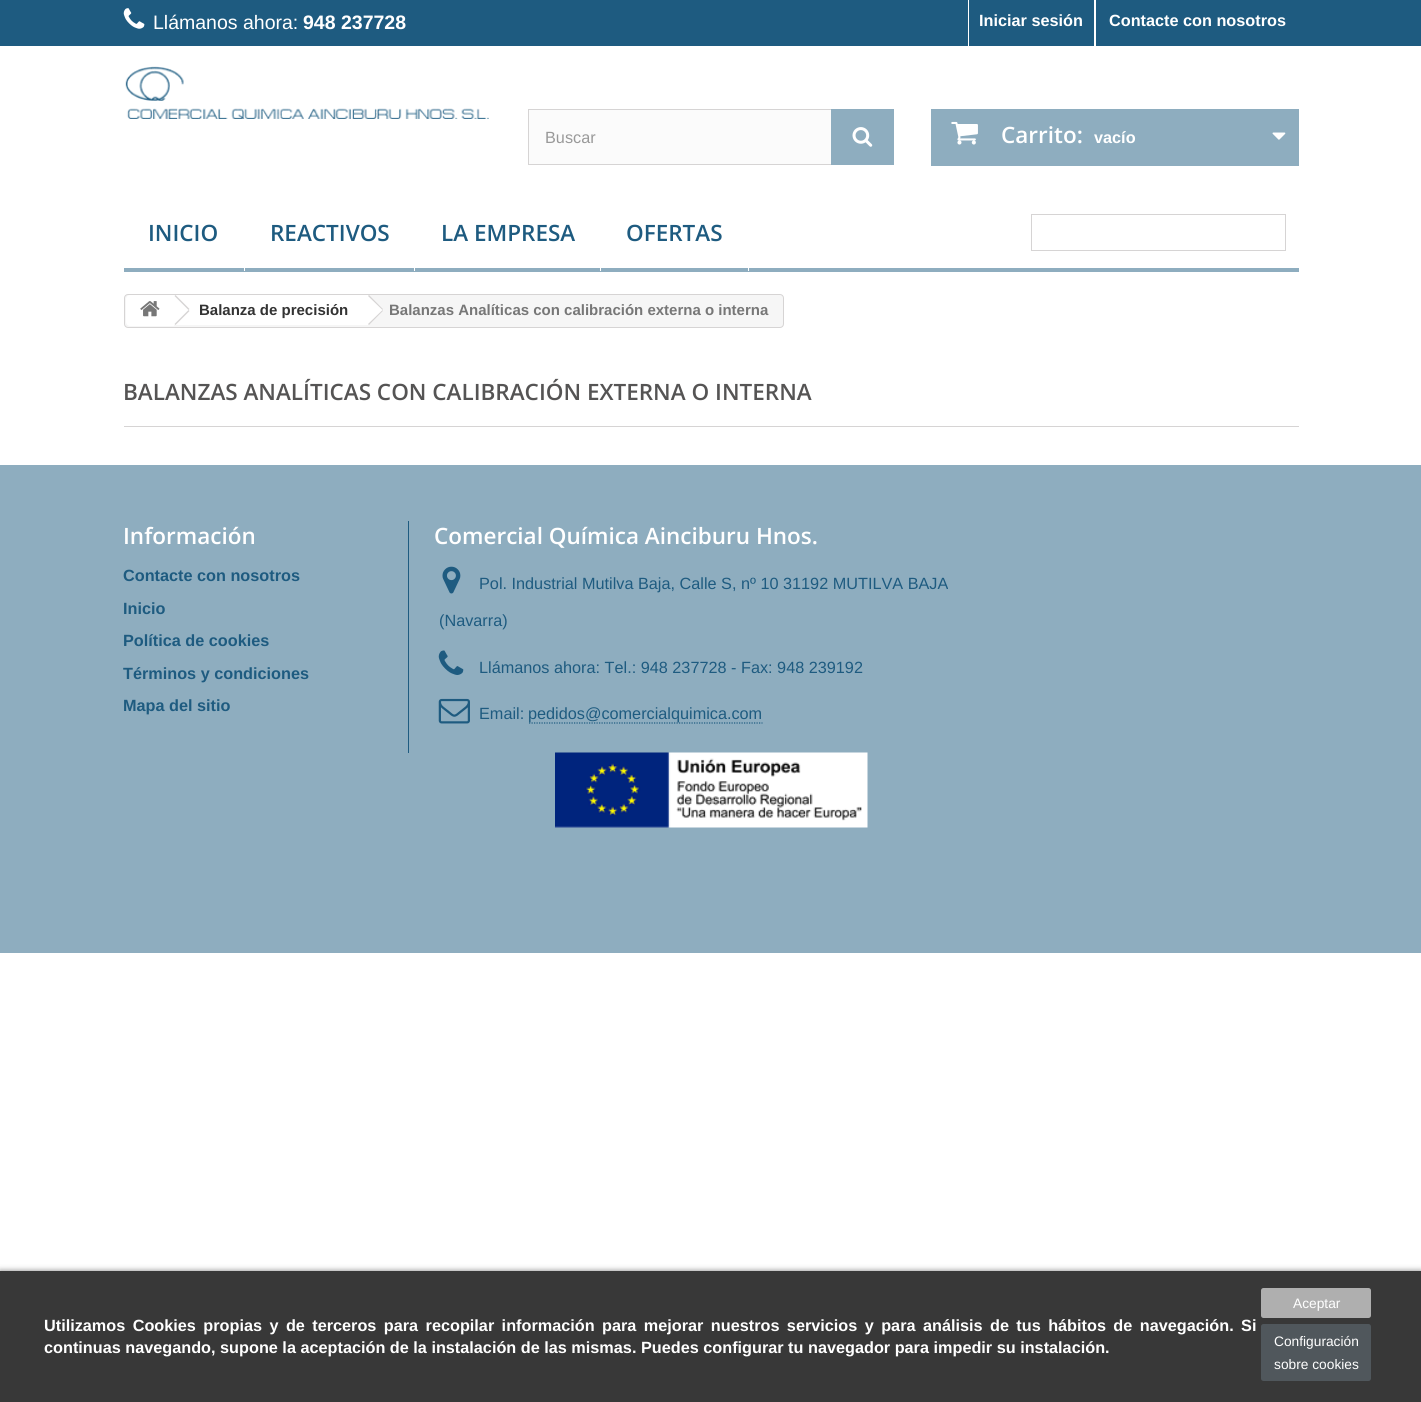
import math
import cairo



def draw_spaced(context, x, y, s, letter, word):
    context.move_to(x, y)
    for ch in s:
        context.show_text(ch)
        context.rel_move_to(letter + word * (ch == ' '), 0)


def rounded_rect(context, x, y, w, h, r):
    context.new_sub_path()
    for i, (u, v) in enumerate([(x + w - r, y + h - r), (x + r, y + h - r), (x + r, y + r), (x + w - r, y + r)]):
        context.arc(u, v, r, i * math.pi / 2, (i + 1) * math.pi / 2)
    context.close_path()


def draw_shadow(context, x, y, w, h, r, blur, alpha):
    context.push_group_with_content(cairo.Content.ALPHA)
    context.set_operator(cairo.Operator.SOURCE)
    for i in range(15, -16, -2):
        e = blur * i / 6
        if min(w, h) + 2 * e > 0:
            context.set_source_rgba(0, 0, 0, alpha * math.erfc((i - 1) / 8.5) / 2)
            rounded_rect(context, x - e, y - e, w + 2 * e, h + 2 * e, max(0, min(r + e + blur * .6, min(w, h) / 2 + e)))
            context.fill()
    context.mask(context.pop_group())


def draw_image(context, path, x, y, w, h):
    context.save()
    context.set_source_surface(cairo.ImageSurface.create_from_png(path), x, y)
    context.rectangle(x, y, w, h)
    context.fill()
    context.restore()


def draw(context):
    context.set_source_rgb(1, 1, 1)
    context.paint()
    context.set_source_rgb(30 / 255, 91 / 255, 128 / 255)
    context.rectangle(0, 0, 1421, 46)
    context.fill()
    draw_image(context, "images/1.png", 123, 8, 22, 21)
    context.set_source_rgb(1, 1, 1)
    context.rectangle(968, 0, 1, 46)
    context.fill()
    context.rectangle(1094, 0, 2, 46)
    context.fill()
    draw_image(context, "images/2.png", 125, 66, 364, 53)
    context.set_source_rgb(251 / 255, 251 / 255, 251 / 255)
    context.rectangle(529, 110, 302, 54)
    context.fill()
    context.rectangle(528.5, 109.5, 365, 55)
    context.set_source_rgb(214 / 255, 212 / 255, 212 / 255)
    context.set_line_width(1)
    context.stroke()
    context.set_source_rgb(142 / 255, 173 / 255, 191 / 255)
    context.rectangle(831, 109, 63, 56)
    context.fill()
    draw_image(context, "images/3.png", 852, 127, 21, 20)
    context.rectangle(931, 109, 368, 57)
    context.fill()
    draw_image(context, "images/4.png", 951, 121, 27, 24)
    draw_image(context, "images/5.png", 1272, 132, 14, 8)
    context.rectangle(124, 268, 1175, 4)
    context.fill()
    context.set_source_rgb(1, 1, 1)
    context.rectangle(244, 268, 1, 3)
    context.fill()
    context.rectangle(414, 268, 1, 3)
    context.fill()
    context.rectangle(600, 268, 1, 3)
    context.fill()
    context.rectangle(748, 268, 1, 3)
    context.fill()
    context.rectangle(1031.5, 214.5, 254, 36)
    context.set_source_rgb(214 / 255, 212 / 255, 212 / 255)
    context.stroke()
    context.set_source_rgb(246 / 255, 246 / 255, 246 / 255)
    rounded_rect(context, 124.5, 294.5, 659, 33, 3.5)
    context.fill_preserve()
    context.set_source_rgb(214 / 255, 212 / 255, 212 / 255)
    context.stroke()
    context.set_source_rgb(1, 1, 1)
    context.new_path()
    context.move_to(130, 295)
    context.line_to(174, 295)
    context.line_to(174, 326)
    context.line_to(130, 326)
    context.curve_to(128, 326, 126, 324, 126, 322)
    context.line_to(126, 299)
    context.curve_to(126, 297, 128, 295, 130, 295)
    context.close_path()
    context.fill()
    draw_image(context, "images/6.png", 140, 301, 20, 16)
    context.rectangle(174, 295, 194, 30)
    context.fill()
    context.set_source_rgb(214 / 255, 212 / 255, 212 / 255)
    context.new_path()
    context.move_to(175.5, 295)
    context.line_to(189.5, 309)
    context.line_to(188.5, 310)
    context.line_to(174.5, 296)
    context.close_path()
    context.move_to(188.5, 310)
    context.line_to(189.5, 311)
    context.line_to(175.5, 325)
    context.line_to(174.5, 324)
    context.close_path()
    context.fill()
    context.set_source_rgb(1, 1, 1)
    context.new_path()
    context.move_to(370, 296)
    context.line_to(382.5, 308)
    context.curve_to(383.5, 309, 383.5, 311, 382.5, 312)
    context.line_to(370, 324)
    context.curve_to(369, 325, 367.5, 325, 366.5, 324)
    context.line_to(354, 312)
    context.curve_to(353, 311, 353, 309, 354, 308)
    context.line_to(366.5, 296)
    context.curve_to(367.5, 295, 369, 295, 370, 296)
    context.close_path()
    context.fill()
    context.set_source_rgb(214 / 255, 212 / 255, 212 / 255)
    context.new_path()
    context.move_to(369, 295)
    context.line_to(383, 309)
    context.line_to(382.5, 310)
    context.line_to(368, 296)
    context.close_path()
    context.move_to(382.5, 310)
    context.line_to(383, 311)
    context.line_to(369, 325)
    context.line_to(368, 324)
    context.close_path()
    context.fill()
    context.rectangle(124, 426, 1175, 1)
    context.fill()
    context.set_source_rgb(142 / 255, 173 / 255, 191 / 255)
    context.rectangle(0, 465, 1421, 488)
    context.fill()
    context.set_source_rgb(30 / 255, 91 / 255, 128 / 255)
    context.rectangle(408, 521, 1, 232)
    context.fill()
    draw_image(context, "images/7.png", 442, 566, 19, 28)
    draw_image(context, "images/8.png", 438, 650, 26, 25)
    draw_image(context, "images/9.png", 438, 698, 32, 26)
    context.new_path()
    context.move_to(529, 723)
    context.line_to(762.5, 723)
    context.set_line_width(1.2)
    context.set_dash([1.25, 1.25])
    context.stroke()
    draw_image(context, "images/10.png", 555, 752, 313, 76)
    context.set_source_rgb(0, 0, 0)
    draw_shadow(context, 0, 1271, 1421, 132, 0, 3, 0.5)
    context.set_source_rgb(56 / 255, 56 / 255, 56 / 255)
    context.rectangle(0, 1271, 1421, 131)
    context.fill()
    context.set_source_rgb(175 / 255, 175 / 255, 175 / 255)
    rounded_rect(context, 1261, 1288, 110, 30, 2.5)
    context.fill()
    context.set_source_rgb(80 / 255, 87 / 255, 92 / 255)
    rounded_rect(context, 1261, 1324, 110, 57, 2.5)
    context.fill()
    context.select_font_face("Liberation Sans")
    context.set_font_size(19.5)
    context.set_source_rgb(1, 1, 1)
    context.move_to(153, 29)
    context.show_text("Llámanos ahora:")
    context.select_font_face("Liberation Sans", cairo.FontSlant.NORMAL, cairo.FontWeight.BOLD)
    context.move_to(303, 29)
    context.show_text("948 237728")
    context.set_font_size(16.25)
    context.move_to(979, 26)
    context.show_text("Iniciar sesión")
    context.move_to(1109, 26)
    context.show_text("Contacte con nosotros")
    context.select_font_face("Liberation Sans")
    context.set_source_rgb(153 / 255, 153 / 255, 153 / 255)
    context.move_to(545, 143)
    context.show_text("Buscar")
    context.select_font_face("Open Sans SemiBold")
    context.set_font_size(22.5)
    context.set_source_rgb(1, 1, 1)
    context.move_to(1001, 143)
    context.show_text("Carrito:")
    context.select_font_face("Liberation Sans", cairo.FontSlant.NORMAL, cairo.FontWeight.BOLD)
    context.set_font_size(16.25)
    context.move_to(1094, 143)
    context.show_text("vacío")
    context.select_font_face("Open Sans SemiBold")
    context.set_font_size(22.5)
    context.set_source_rgb(30 / 255, 91 / 255, 128 / 255)
    context.move_to(148, 241)
    context.show_text("INICIO")
    context.move_to(270, 241)
    context.show_text("REACTIVOS")
    context.move_to(441, 241)
    context.show_text("LA EMPRESA")
    context.move_to(626, 241)
    context.show_text("OFERTAS")
    context.select_font_face("Liberation Sans", cairo.FontSlant.NORMAL, cairo.FontWeight.BOLD)
    context.set_font_size(15)
    context.set_source_rgb(51 / 255, 51 / 255, 51 / 255)
    context.move_to(199, 315)
    context.show_text("Balanza de precisión")
    context.set_source_rgb(119 / 255, 119 / 255, 119 / 255)
    context.move_to(389, 315)
    context.show_text("Balanzas Analíticas con calibración externa o interna")
    context.select_font_face("Open Sans SemiBold")
    context.set_font_size(22.5)
    context.set_source_rgb(85 / 255, 84 / 255, 84 / 255)
    context.move_to(123, 400)
    context.show_text("BALANZAS ANALÍTICAS CON CALIBRACIÓN EXTERNA O INTERNA")
    context.set_source_rgb(1, 1, 1)
    context.move_to(123, 544)
    context.show_text("Información")
    context.select_font_face("Liberation Sans", cairo.FontSlant.NORMAL, cairo.FontWeight.BOLD)
    context.set_font_size(16.25)
    context.set_source_rgb(30 / 255, 91 / 255, 128 / 255)
    context.move_to(123, 581)
    context.show_text("Contacte con nosotros")
    context.move_to(123, 614)
    context.show_text("Inicio")
    context.move_to(123, 646)
    context.show_text("Política de cookies")
    context.move_to(123, 679)
    context.show_text("Términos y condiciones")
    context.move_to(123, 711)
    context.show_text("Mapa del sitio")
    context.select_font_face("Open Sans SemiBold")
    context.set_font_size(22.5)
    context.set_source_rgb(1, 1, 1)
    context.move_to(434, 544)
    context.show_text("Comercial Química Ainciburu Hnos.")
    context.select_font_face("Liberation Sans")
    context.set_font_size(16.25)
    context.set_source_rgb(30 / 255, 91 / 255, 128 / 255)
    context.move_to(479, 589)
    context.show_text("Pol. Industrial Mutilva Baja, Calle S, nº 10 31192 MUTILVA BAJA")
    context.move_to(439, 626)
    context.show_text("(Navarra)")
    context.move_to(479, 673)
    context.show_text("Llámanos ahora: Tel.: 948 237728 - Fax: 948 239192")
    context.move_to(479, 719)
    context.show_text("Email:")
    context.move_to(528, 719)
    context.show_text("pedidos@comercialquimica.com")
    context.select_font_face("Liberation Sans", cairo.FontSlant.NORMAL, cairo.FontWeight.BOLD)
    context.set_source_rgb(1, 1, 1)
    draw_spaced(context, 44, 1331, "Utilizamos Cookies propias y de terceros para recopilar información para mejorar nuestros servicios y para análisis de tus hábitos de navegación. Si", 0, 2.9)
    context.move_to(44, 1353)
    context.show_text("continuas navegando, supone la aceptación de la instalación de las mismas. Puedes configurar tu navegador para impedir su instalación.")
    context.select_font_face("Liberation Sans")
    context.set_font_size(13.75)
    context.move_to(1293, 1308)
    context.show_text("Aceptar")
    context.move_to(1274, 1346)
    context.show_text("Configuración")
    context.move_to(1274, 1369)
    context.show_text("sobre cookies")


surface = cairo.ImageSurface(cairo.Format.RGB24, 1421, 1402)
context = cairo.Context(surface)
options = cairo.FontOptions()
options.set_hint_metrics(cairo.HintMetrics.OFF)
options.set_hint_style(cairo.HintStyle.NONE)
context.set_font_options(options)
context.set_miter_limit(4)
draw(context)
surface.write_to_png("out.png")
